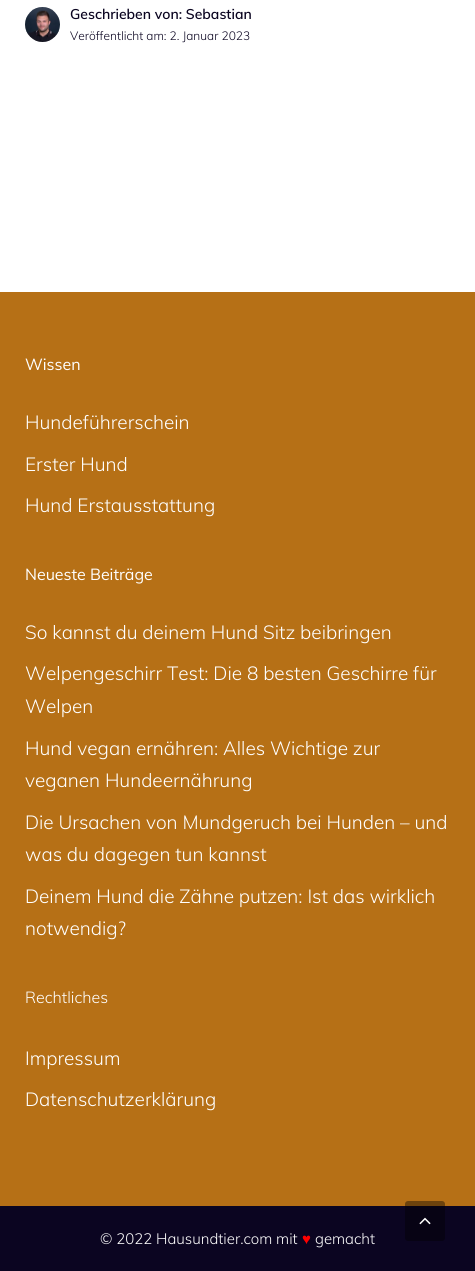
import math
import cairo



def rounded_rect(context, x, y, w, h, r):
    context.new_sub_path()
    for i, (u, v) in enumerate([(x + w - r, y + h - r), (x + r, y + h - r), (x + r, y + r), (x + w - r, y + r)]):
        context.arc(u, v, r, i * math.pi / 2, (i + 1) * math.pi / 2)
    context.close_path()


def draw_image(context, path, x, y, w, h):
    context.save()
    context.set_source_surface(cairo.ImageSurface.create_from_png(path), x, y)
    context.rectangle(x, y, w, h)
    context.fill()
    context.restore()


def draw(context):
    context.set_source_rgb(1, 1, 1)
    context.paint()
    draw_image(context, "images/1.png", 25, 7, 35, 35)
    context.set_source_rgb(182 / 255, 112 / 255, 22 / 255)
    context.rectangle(0, 292, 475, 914)
    context.fill()
    context.set_source_rgb(11 / 255, 5 / 255, 33 / 255)
    context.rectangle(0, 1206, 475, 65)
    context.fill()
    context.set_source_rgba(0, 0, 0, 0.4)
    rounded_rect(context, 405, 1201, 40, 40, 3)
    context.fill()
    draw_image(context, "images/2.png", 419, 1217, 12, 8)
    context.select_font_face("Muli SemiBold")
    context.set_font_size(14)
    context.set_source_rgb(11 / 255, 5 / 255, 33 / 255)
    context.move_to(70, 19)
    context.show_text("Geschrieben von: Sebastian")
    context.select_font_face("Muli Light")
    context.set_font_size(12)
    context.move_to(70, 40)
    context.show_text("Veröffentlicht am: 2. Januar 2023")
    context.select_font_face("Muli")
    context.set_font_size(16)
    context.set_source_rgb(1, 1, 1)
    context.move_to(25, 370)
    context.show_text("Wissen")
    context.select_font_face("Muli Light")
    context.set_font_size(19)
    context.move_to(25, 429)
    context.show_text("Hundeführerschein")
    context.move_to(25, 471)
    context.show_text("Erster Hund")
    context.move_to(25, 512)
    context.show_text("Hund Erstausstattung")
    context.select_font_face("Muli")
    context.set_font_size(16)
    context.move_to(25, 580)
    context.show_text("Neueste Beiträge")
    context.select_font_face("Muli Light")
    context.set_font_size(19)
    context.move_to(25, 639)
    context.show_text("So kannst du deinem Hund Sitz beibringen")
    context.move_to(25, 680)
    context.show_text("Welpengeschirr Test: Die 8 besten Geschirre für")
    context.move_to(25, 713)
    context.show_text("Welpen")
    context.move_to(25, 755)
    context.show_text("Hund vegan ernähren: Alles Wichtige zur")
    context.move_to(25, 787)
    context.show_text("veganen Hundeernährung")
    context.move_to(25, 829)
    context.show_text("Die Ursachen von Mundgeruch bei Hunden – und")
    context.move_to(25, 861)
    context.show_text("was du dagegen tun kannst")
    context.move_to(25, 903)
    context.show_text("Deinem Hund die Zähne putzen: Ist das wirklich")
    context.move_to(25, 935)
    context.show_text("notwendig?")
    context.set_font_size(16)
    context.move_to(25, 1003)
    context.show_text("Rechtliches")
    context.set_font_size(19)
    context.move_to(25, 1065)
    context.show_text("Impressum")
    context.move_to(25, 1106)
    context.show_text("Datenschutzerklärung")
    context.set_font_size(15)
    context.move_to(100, 1244)
    context.show_text("© 2022 Hausundtier.com mit")
    context.select_font_face("Liberation Sans")
    context.set_source_rgb(1, 0, 0)
    context.move_to(302, 1244)
    context.show_text("♥")
    context.select_font_face("Muli Light")
    context.set_source_rgb(1, 1, 1)
    context.move_to(315, 1244)
    context.show_text("gemacht")


surface = cairo.ImageSurface(cairo.Format.RGB24, 475, 1271)
context = cairo.Context(surface)
options = cairo.FontOptions()
options.set_hint_metrics(cairo.HintMetrics.OFF)
options.set_hint_style(cairo.HintStyle.NONE)
context.set_font_options(options)
context.set_miter_limit(4)
draw(context)
surface.write_to_png("out.png")
